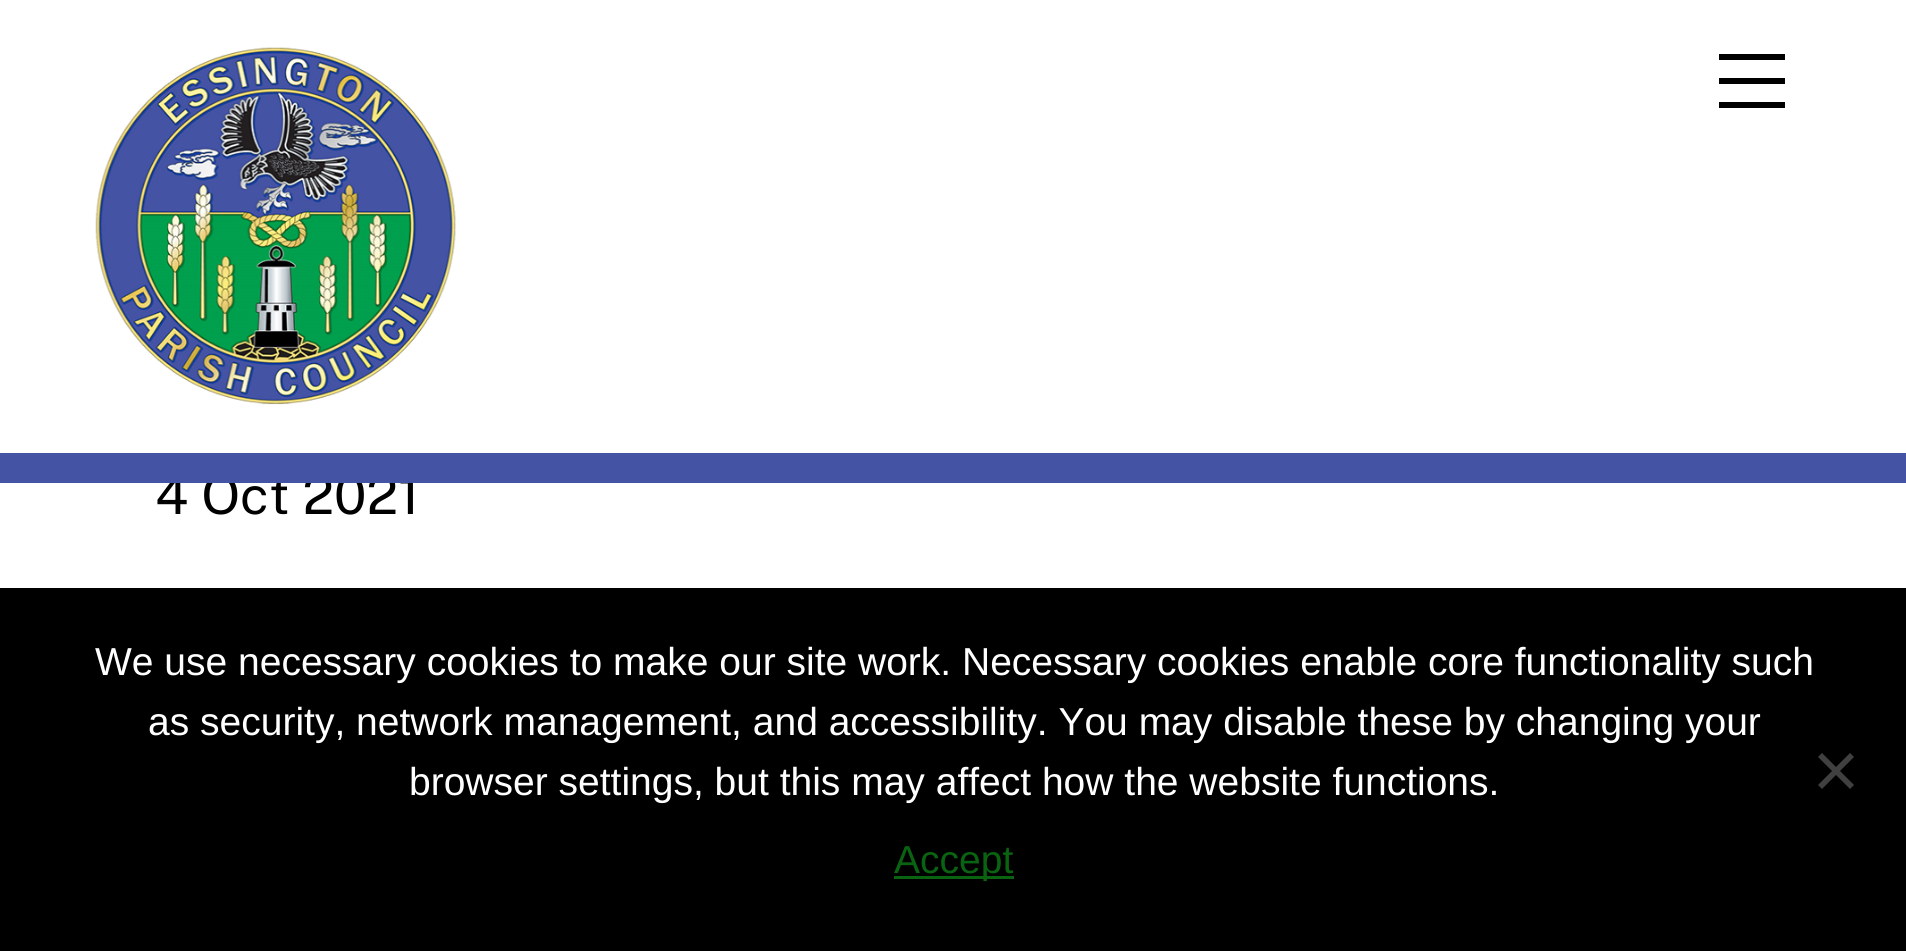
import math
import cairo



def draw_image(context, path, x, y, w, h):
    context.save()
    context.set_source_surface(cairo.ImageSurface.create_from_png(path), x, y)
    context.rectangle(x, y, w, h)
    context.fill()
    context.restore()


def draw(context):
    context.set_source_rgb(1, 1, 1)
    context.paint()
    draw_image(context, "images/1.png", 95, 47, 361, 358)
    context.set_source_rgb(0, 0, 0)
    context.rectangle(1719, 102, 66, 6)
    context.fill()
    context.rectangle(1719, 54, 66, 6)
    context.fill()
    context.rectangle(1719, 78, 66, 6)
    context.fill()
    context.rectangle(0, 588, 1906, 363)
    context.fill()
    context.set_source_rgb(64 / 255, 64 / 255, 64 / 255)
    context.new_path()
    context.move_to(1850, 753)
    context.line_to(1854, 757)
    context.line_to(1822, 789)
    context.line_to(1818, 785)
    context.close_path()
    context.fill()
    context.new_path()
    context.move_to(1818, 757)
    context.line_to(1822, 753)
    context.line_to(1854, 785)
    context.line_to(1850, 789)
    context.close_path()
    context.fill()
    context.set_source_rgb(10 / 255, 99 / 255, 17 / 255)
    context.rectangle(894, 876, 120, 3)
    context.fill()
    context.select_font_face("Public Sans")
    context.set_font_size(53)
    context.set_source_rgb(0, 0, 0)
    context.move_to(155, 514)
    context.show_text("4 Oct 2021")
    context.set_source_rgb(68 / 255, 83 / 255, 164 / 255)
    context.rectangle(0, 453, 1906, 30)
    context.fill()
    context.select_font_face("Liberation Sans")
    context.set_font_size(39)
    context.set_source_rgb(1, 1, 1)
    context.move_to(95, 675)
    context.show_text("We use necessary cookies to make our site work. Necessary cookies enable core functionality such")
    context.move_to(148, 735)
    context.show_text("as security, network management, and accessibility. You may disable these by changing your")
    context.move_to(409, 795)
    context.show_text("browser settings, but this may affect how the website functions.")
    context.set_source_rgb(10 / 255, 99 / 255, 17 / 255)
    context.move_to(894, 873)
    context.show_text("Accept")


surface = cairo.ImageSurface(cairo.Format.RGB24, 1906, 951)
context = cairo.Context(surface)
options = cairo.FontOptions()
options.set_hint_metrics(cairo.HintMetrics.OFF)
options.set_hint_style(cairo.HintStyle.NONE)
context.set_font_options(options)
context.set_miter_limit(4)
draw(context)
surface.write_to_png("out.png")
